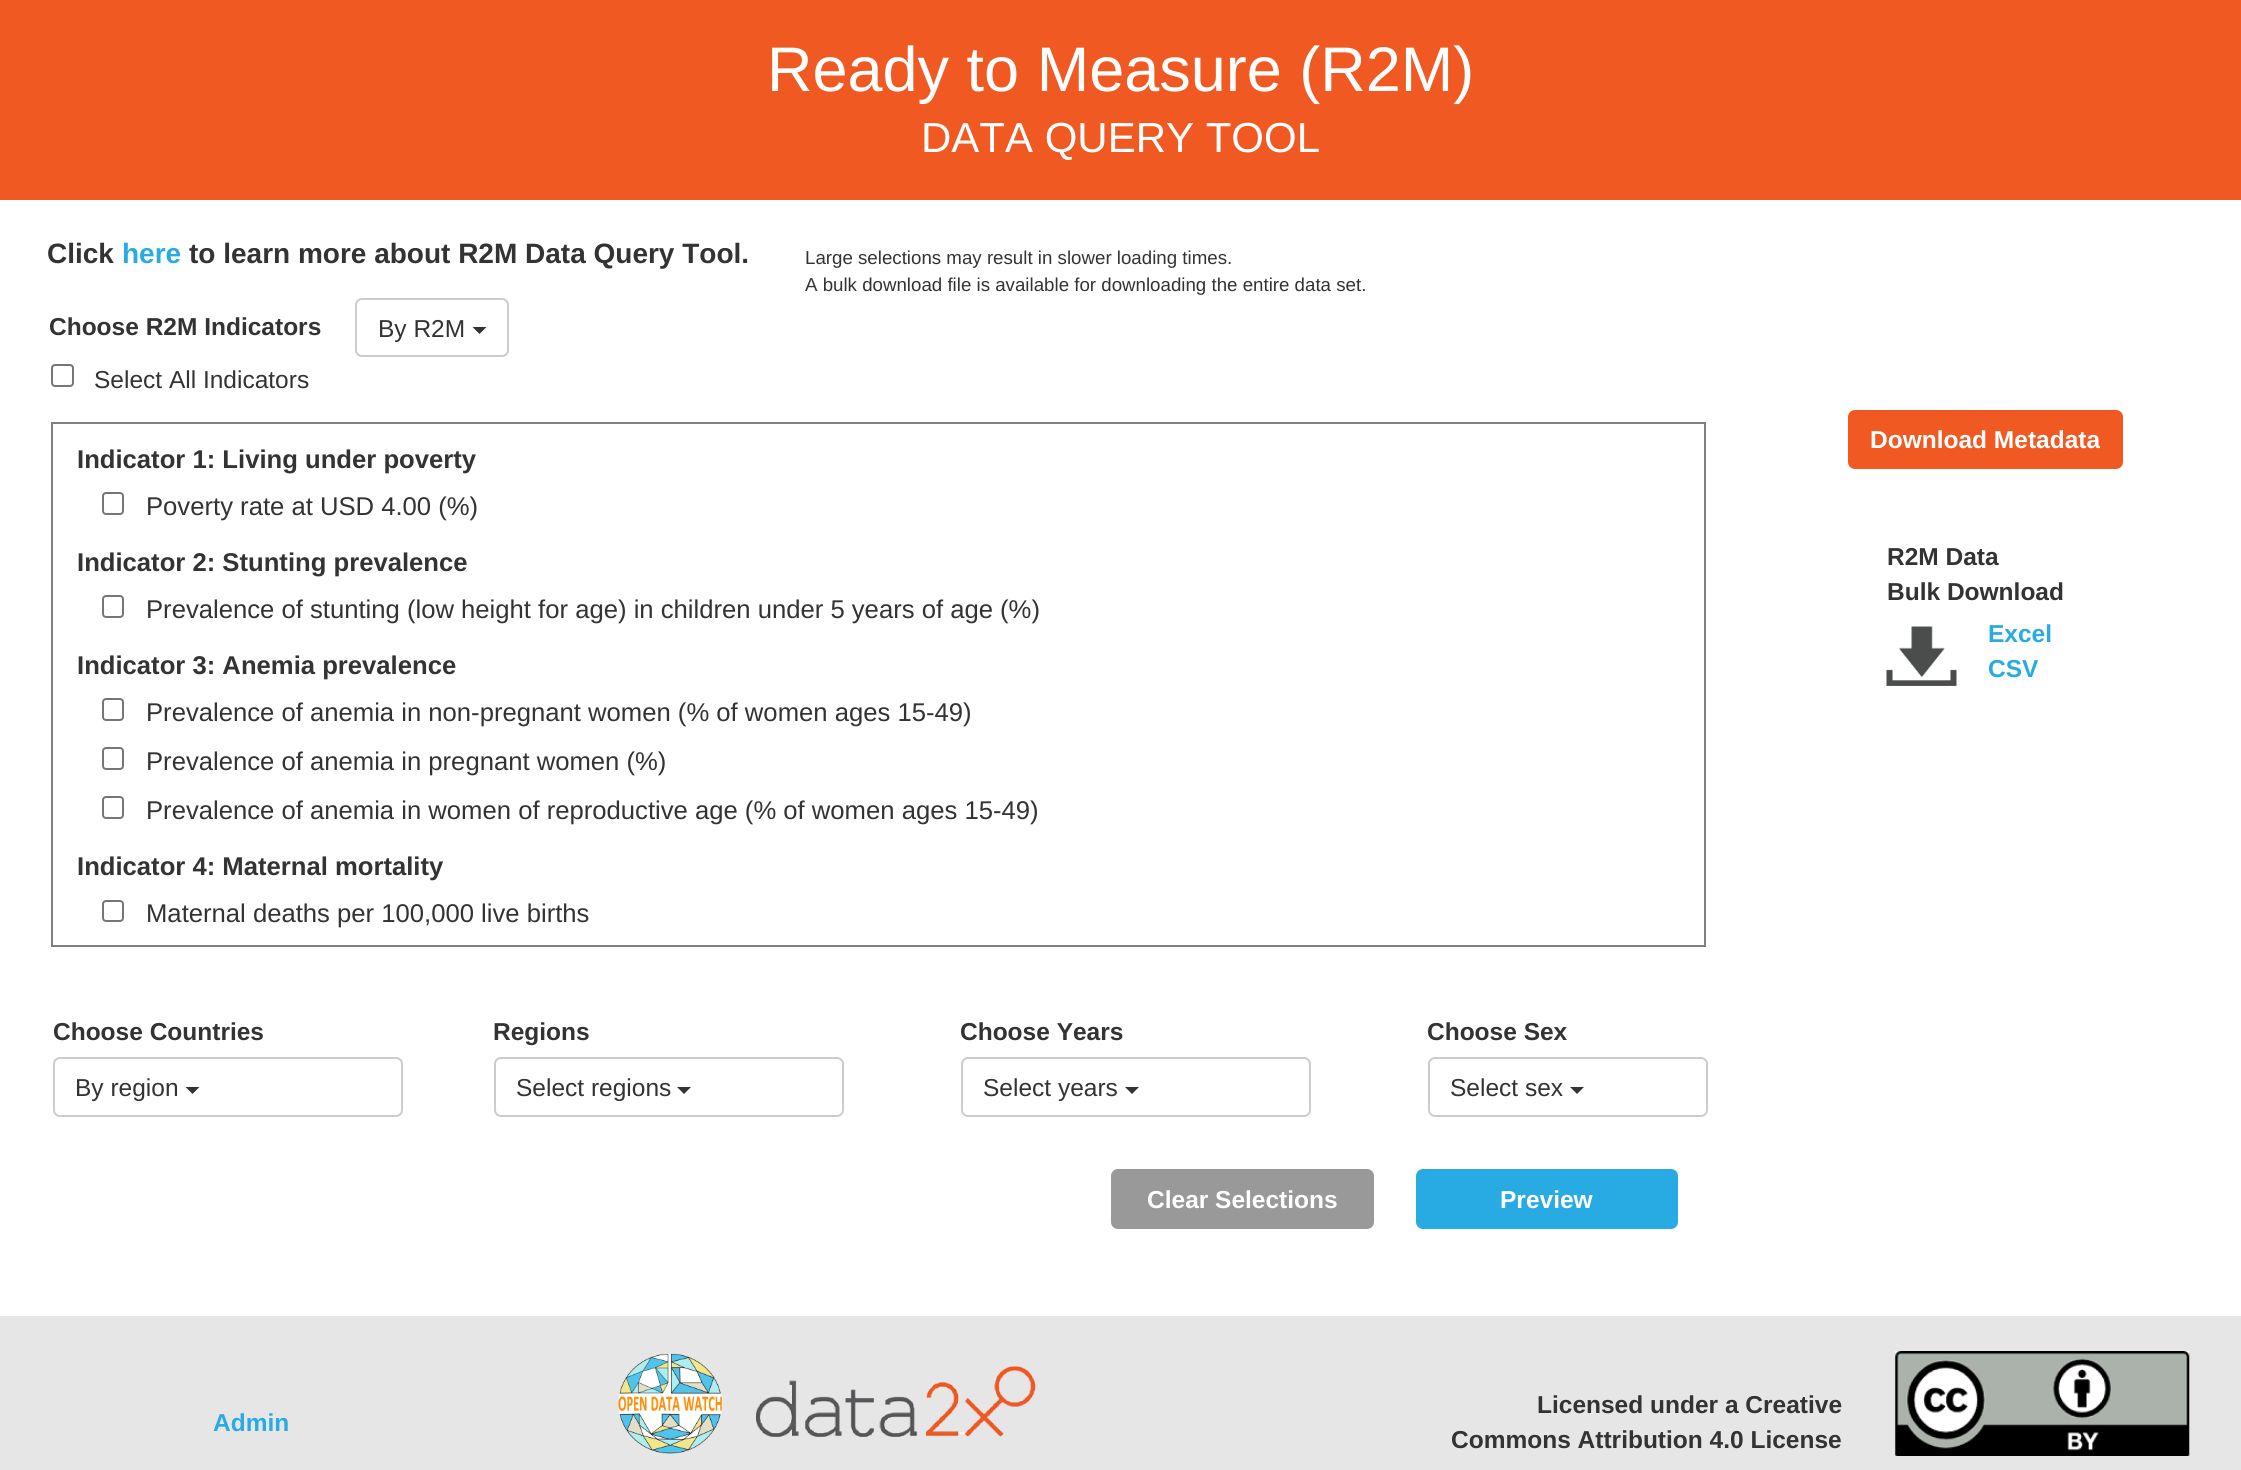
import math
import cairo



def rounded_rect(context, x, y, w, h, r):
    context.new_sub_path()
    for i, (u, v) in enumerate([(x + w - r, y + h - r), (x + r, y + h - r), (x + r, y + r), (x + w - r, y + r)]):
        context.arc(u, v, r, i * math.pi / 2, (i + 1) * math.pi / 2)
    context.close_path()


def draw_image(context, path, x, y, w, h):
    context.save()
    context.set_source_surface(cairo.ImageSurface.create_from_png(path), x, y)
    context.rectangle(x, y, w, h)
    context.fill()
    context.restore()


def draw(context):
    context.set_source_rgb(1, 1, 1)
    context.paint()
    context.set_source_rgb(240 / 255, 90 / 255, 34 / 255)
    context.rectangle(0, 0, 2241, 200)
    context.fill()
    rounded_rect(context, 356, 299, 152, 57, 6)
    context.set_source_rgb(204 / 255, 204 / 255, 204 / 255)
    context.stroke()
    context.set_source_rgb(51 / 255, 51 / 255, 51 / 255)
    context.new_path()
    context.move_to(472.5, 327)
    context.line_to(486.5, 327)
    context.line_to(479.5, 334)
    context.close_path()
    context.fill()
    rounded_rect(context, 52, 365, 21, 21, 3)
    context.set_source_rgb(118 / 255, 118 / 255, 118 / 255)
    context.stroke()
    context.rectangle(52, 423, 1653, 523)
    context.set_source_rgb(128 / 255, 128 / 255, 128 / 255)
    context.stroke()
    rounded_rect(context, 103, 493, 20, 21, 3)
    context.set_source_rgb(118 / 255, 118 / 255, 118 / 255)
    context.stroke()
    rounded_rect(context, 103, 596, 20, 21, 3)
    context.stroke()
    rounded_rect(context, 103, 699, 20, 21, 3)
    context.stroke()
    rounded_rect(context, 103, 748, 20, 21, 3)
    context.stroke()
    rounded_rect(context, 103, 797, 20, 21, 3)
    context.stroke()
    rounded_rect(context, 103, 901, 20, 20, 3)
    context.stroke()
    rounded_rect(context, 54, 1058, 348, 58, 6)
    context.set_source_rgb(204 / 255, 204 / 255, 204 / 255)
    context.stroke()
    context.set_source_rgb(51 / 255, 51 / 255, 51 / 255)
    context.new_path()
    context.move_to(185.5, 1087)
    context.line_to(199.5, 1087)
    context.line_to(192.5, 1094)
    context.close_path()
    context.fill()
    rounded_rect(context, 495, 1058, 348, 58, 6)
    context.set_source_rgb(204 / 255, 204 / 255, 204 / 255)
    context.stroke()
    context.set_source_rgb(51 / 255, 51 / 255, 51 / 255)
    context.new_path()
    context.move_to(677, 1087)
    context.line_to(691, 1087)
    context.line_to(684, 1094)
    context.close_path()
    context.fill()
    rounded_rect(context, 962, 1058, 348, 58, 6)
    context.set_source_rgb(204 / 255, 204 / 255, 204 / 255)
    context.stroke()
    context.set_source_rgb(51 / 255, 51 / 255, 51 / 255)
    context.new_path()
    context.move_to(1125, 1087)
    context.line_to(1139, 1087)
    context.line_to(1132, 1094)
    context.close_path()
    context.fill()
    rounded_rect(context, 1429, 1058, 278, 58, 6)
    context.set_source_rgb(204 / 255, 204 / 255, 204 / 255)
    context.stroke()
    context.set_source_rgb(51 / 255, 51 / 255, 51 / 255)
    context.new_path()
    context.move_to(1570, 1087)
    context.line_to(1584, 1087)
    context.line_to(1577, 1094)
    context.close_path()
    context.fill()
    context.set_source_rgb(153 / 255, 153 / 255, 153 / 255)
    rounded_rect(context, 1112, 1170, 261, 58, 6)
    context.fill_preserve()
    context.stroke()
    context.set_source_rgb(40 / 255, 171 / 255, 227 / 255)
    rounded_rect(context, 1417, 1170, 260, 58, 6)
    context.fill_preserve()
    context.stroke()
    context.set_source_rgb(240 / 255, 90 / 255, 34 / 255)
    rounded_rect(context, 1849, 411, 273, 57, 6)
    context.fill_preserve()
    context.stroke()
    draw_image(context, "images/1.png", 1886, 626, 71, 60)
    context.set_source_rgb(230 / 255, 230 / 255, 230 / 255)
    context.rectangle(0, 1316, 2241, 154)
    context.fill()
    draw_image(context, "images/2.png", 618, 1353, 105, 101)
    draw_image(context, "images/3.png", 756, 1366, 280, 71)
    draw_image(context, "images/4.png", 1895, 1351, 295, 105)
    context.select_font_face("Liberation Sans")
    context.set_font_size(63)
    context.set_source_rgb(1, 1, 1)
    context.move_to(767, 91)
    context.show_text("Ready to Measure (R2M)")
    context.set_font_size(42)
    context.move_to(921, 152)
    context.show_text("DATA QUERY TOOL")
    context.select_font_face("Liberation Sans", cairo.FontSlant.NORMAL, cairo.FontWeight.BOLD)
    context.set_font_size(28)
    context.set_source_rgb(51 / 255, 51 / 255, 51 / 255)
    context.move_to(47, 263)
    context.show_text("Click")
    context.set_source_rgb(40 / 255, 171 / 255, 227 / 255)
    context.move_to(122, 263)
    context.show_text("here")
    context.set_source_rgb(51 / 255, 51 / 255, 51 / 255)
    context.move_to(189, 263)
    context.show_text("to learn more about R2M Data Query Tool.")
    context.select_font_face("Liberation Sans")
    context.set_font_size(18.7)
    context.move_to(805, 264)
    context.show_text("Large selections may result in slower loading times.")
    context.move_to(805, 291)
    context.show_text("A bulk download file is available for downloading the entire data set.")
    context.select_font_face("Liberation Sans", cairo.FontSlant.NORMAL, cairo.FontWeight.BOLD)
    context.set_font_size(24.5)
    context.move_to(49, 335)
    context.show_text("Choose R2M Indicators")
    context.select_font_face("Liberation Sans")
    context.move_to(378, 337)
    context.show_text("By R2M")
    context.move_to(94, 388)
    context.show_text("Select All Indicators")
    context.select_font_face("Liberation Sans", cairo.FontSlant.NORMAL, cairo.FontWeight.BOLD)
    context.set_font_size(25.65)
    context.move_to(77, 468)
    context.show_text("Indicator 1: Living under poverty")
    context.select_font_face("Liberation Sans")
    context.move_to(146, 515)
    context.show_text("Poverty rate at USD 4.00 (%)")
    context.select_font_face("Liberation Sans", cairo.FontSlant.NORMAL, cairo.FontWeight.BOLD)
    context.move_to(77, 571)
    context.show_text("Indicator 2: Stunting prevalence")
    context.select_font_face("Liberation Sans")
    context.move_to(146, 618)
    context.show_text("Prevalence of stunting (low height for age) in children under 5 years of age (%)")
    context.select_font_face("Liberation Sans", cairo.FontSlant.NORMAL, cairo.FontWeight.BOLD)
    context.move_to(77, 674)
    context.show_text("Indicator 3: Anemia prevalence")
    context.select_font_face("Liberation Sans")
    context.move_to(146, 721)
    context.show_text("Prevalence of anemia in non-pregnant women (% of women ages 15-49)")
    context.move_to(146, 770)
    context.show_text("Prevalence of anemia in pregnant women (%)")
    context.move_to(146, 819)
    context.show_text("Prevalence of anemia in women of reproductive age (% of women ages 15-49)")
    context.select_font_face("Liberation Sans", cairo.FontSlant.NORMAL, cairo.FontWeight.BOLD)
    context.move_to(77, 875)
    context.show_text("Indicator 4: Maternal mortality")
    context.select_font_face("Liberation Sans")
    context.move_to(146, 922)
    context.show_text("Maternal deaths per 100,000 live births")
    context.select_font_face("Liberation Sans", cairo.FontSlant.NORMAL, cairo.FontWeight.BOLD)
    context.set_font_size(24.5)
    context.move_to(53, 1040)
    context.show_text("Choose Countries")
    context.select_font_face("Liberation Sans")
    context.move_to(75, 1096)
    context.show_text("By region")
    context.select_font_face("Liberation Sans", cairo.FontSlant.NORMAL, cairo.FontWeight.BOLD)
    context.move_to(493, 1040)
    context.show_text("Regions")
    context.select_font_face("Liberation Sans")
    context.move_to(516, 1096)
    context.show_text("Select regions")
    context.select_font_face("Liberation Sans", cairo.FontSlant.NORMAL, cairo.FontWeight.BOLD)
    context.move_to(960, 1040)
    context.show_text("Choose Years")
    context.select_font_face("Liberation Sans")
    context.move_to(983, 1096)
    context.show_text("Select years")
    context.select_font_face("Liberation Sans", cairo.FontSlant.NORMAL, cairo.FontWeight.BOLD)
    context.move_to(1427, 1040)
    context.show_text("Choose Sex")
    context.select_font_face("Liberation Sans")
    context.move_to(1450, 1096)
    context.show_text("Select sex")
    context.select_font_face("Liberation Sans", cairo.FontSlant.NORMAL, cairo.FontWeight.BOLD)
    context.set_source_rgb(1, 1, 1)
    context.move_to(1147, 1208)
    context.show_text("Clear Selections")
    context.move_to(1500, 1208)
    context.show_text("Preview")
    context.move_to(1870, 448)
    context.show_text("Download Metadata")
    context.set_source_rgb(51 / 255, 51 / 255, 51 / 255)
    context.move_to(1887, 565)
    context.show_text("R2M Data")
    context.move_to(1887, 600)
    context.show_text("Bulk Download")
    context.set_source_rgb(40 / 255, 171 / 255, 227 / 255)
    context.move_to(1988, 642)
    context.show_text("Excel")
    context.move_to(1988, 677)
    context.show_text("CSV")
    context.move_to(213, 1431)
    context.show_text("Admin")
    context.set_source_rgb(51 / 255, 51 / 255, 51 / 255)
    context.move_to(1537, 1413)
    context.show_text("Licensed under a Creative")
    context.move_to(1451, 1448)
    context.show_text("Commons Attribution 4.0 License")


surface = cairo.ImageSurface(cairo.Format.RGB24, 2241, 1470)
context = cairo.Context(surface)
options = cairo.FontOptions()
options.set_hint_metrics(cairo.HintMetrics.OFF)
options.set_hint_style(cairo.HintStyle.NONE)
context.set_font_options(options)
context.set_miter_limit(4)
draw(context)
surface.write_to_png("out.png")
